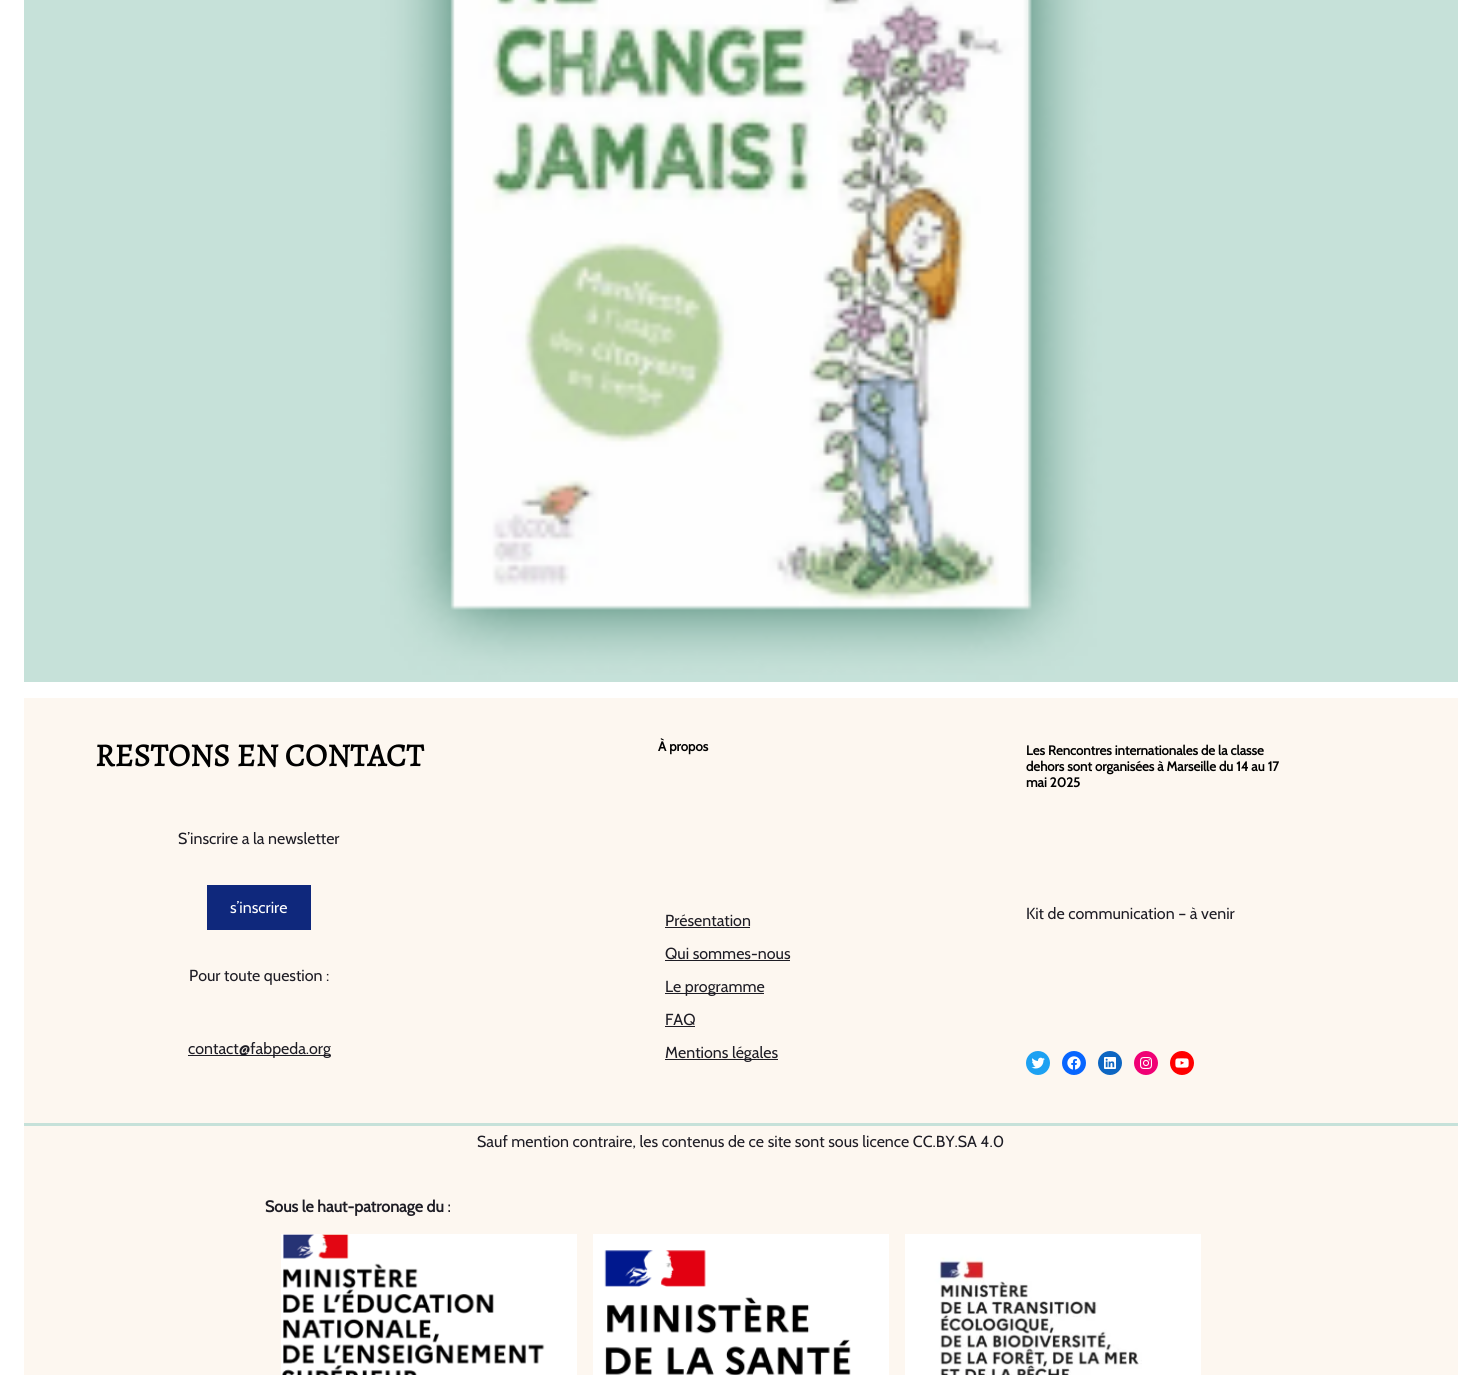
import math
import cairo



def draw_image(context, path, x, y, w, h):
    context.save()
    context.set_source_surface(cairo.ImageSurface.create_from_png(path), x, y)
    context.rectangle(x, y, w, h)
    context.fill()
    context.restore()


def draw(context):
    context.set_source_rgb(1, 1, 1)
    context.paint()
    draw_image(context, "images/1.png", 24, 0, 1434, 682)
    context.set_source_rgb(253 / 255, 247 / 255, 240 / 255)
    context.rectangle(24, 698, 1434, 677)
    context.fill()
    context.set_source_rgb(15 / 255, 40 / 255, 124 / 255)
    context.rectangle(207, 885, 104, 45)
    context.fill()
    context.set_source_rgb(30 / 255, 29 / 255, 37 / 255)
    context.rectangle(188, 1055, 142, 1)
    context.fill()
    context.rectangle(665, 927, 85, 1)
    context.fill()
    context.rectangle(665, 960, 125, 1)
    context.fill()
    context.rectangle(665, 993, 99, 1)
    context.fill()
    context.rectangle(665, 1026, 30, 1)
    context.fill()
    context.rectangle(665, 1059, 113, 1)
    context.fill()
    context.set_source_rgb(29 / 255, 161 / 255, 242 / 255)
    context.arc(1038, 1063, 12, 0, 2 * math.pi)
    context.fill()
    draw_image(context, "images/2.png", 1031, 1057, 14, 12)
    context.set_source_rgb(8 / 255, 102 / 255, 1)
    context.arc(1074, 1063, 12, 0, 2 * math.pi)
    context.fill()
    draw_image(context, "images/3.png", 1067, 1056, 14, 14)
    context.set_source_rgb(13 / 255, 102 / 255, 194 / 255)
    context.arc(1110, 1063, 12, 0, 2 * math.pi)
    context.fill()
    draw_image(context, "images/4.png", 1104, 1057, 12, 12)
    context.set_source_rgb(240 / 255, 0, 117 / 255)
    context.arc(1146, 1063, 12, 0, 2 * math.pi)
    context.fill()
    draw_image(context, "images/5.png", 1140, 1057, 12, 12)
    context.set_source_rgb(1, 0, 0)
    context.arc(1182, 1063, 12, 0, 2 * math.pi)
    context.fill()
    draw_image(context, "images/6.png", 1175, 1058, 14, 10)
    context.set_source_rgb(198 / 255, 225 / 255, 217 / 255)
    context.rectangle(24, 1123, 1434, 3)
    context.fill()
    draw_image(context, "images/7.png", 281, 1234, 296, 141)
    draw_image(context, "images/8.png", 593, 1234, 296, 141)
    draw_image(context, "images/9.png", 905, 1234, 296, 141)
    context.select_font_face("Alegreya", cairo.FontSlant.NORMAL, cairo.FontWeight.BOLD)
    context.set_font_size(32)
    context.set_source_rgb(0, 0, 0)
    context.move_to(95, 766)
    context.show_text("RESTONS EN CONTACT")
    context.select_font_face("Cabin")
    context.set_font_size(16)
    context.set_source_rgb(30 / 255, 29 / 255, 37 / 255)
    context.move_to(178, 844)
    context.show_text("S’inscrire a la newsletter")
    context.set_source_rgb(1, 1, 1)
    context.move_to(230, 913)
    context.show_text("s’inscrire")
    context.set_source_rgb(30 / 255, 29 / 255, 37 / 255)
    context.move_to(189, 981)
    context.show_text("Pour toute question :")
    context.move_to(188, 1054)
    context.show_text("contact@fabpeda.org")
    context.select_font_face("Cabin", cairo.FontSlant.NORMAL, cairo.FontWeight.BOLD)
    context.set_font_size(13.25)
    context.set_source_rgb(0, 0, 0)
    context.move_to(658, 751)
    context.show_text("À propos")
    context.select_font_face("Cabin")
    context.set_font_size(16)
    context.set_source_rgb(30 / 255, 29 / 255, 37 / 255)
    context.move_to(665, 926)
    context.show_text("Présentation")
    context.move_to(665, 959)
    context.show_text("Qui sommes-nous")
    context.move_to(665, 992)
    context.show_text("Le programme")
    context.move_to(665, 1025)
    context.show_text("FAQ")
    context.move_to(665, 1058)
    context.show_text("Mentions légales")
    context.select_font_face("Cabin", cairo.FontSlant.NORMAL, cairo.FontWeight.BOLD)
    context.set_font_size(13.25)
    context.set_source_rgb(0, 0, 0)
    context.move_to(1026, 755)
    context.show_text("Les Rencontres internationales de la classe")
    context.move_to(1026, 771)
    context.show_text("dehors sont organisées à Marseille du 14 au 17")
    context.move_to(1026, 787)
    context.show_text("mai 2025")
    context.select_font_face("Cabin")
    context.set_font_size(16)
    context.set_source_rgb(30 / 255, 29 / 255, 37 / 255)
    context.move_to(1026, 919)
    context.show_text("Kit de communication – à venir")
    context.move_to(477, 1147)
    context.show_text("Sauf mention contraire, les contenus de ce site sont sous licence CC.BY.SA 4.0")
    context.select_font_face("Cabin", cairo.FontSlant.NORMAL, cairo.FontWeight.BOLD)
    context.move_to(265, 1212)
    context.show_text("Sous le haut-patronage du :")


surface = cairo.ImageSurface(cairo.Format.RGB24, 1482, 1375)
context = cairo.Context(surface)
options = cairo.FontOptions()
options.set_hint_metrics(cairo.HintMetrics.OFF)
options.set_hint_style(cairo.HintStyle.NONE)
context.set_font_options(options)
context.set_miter_limit(4)
draw(context)
surface.write_to_png("out.png")
